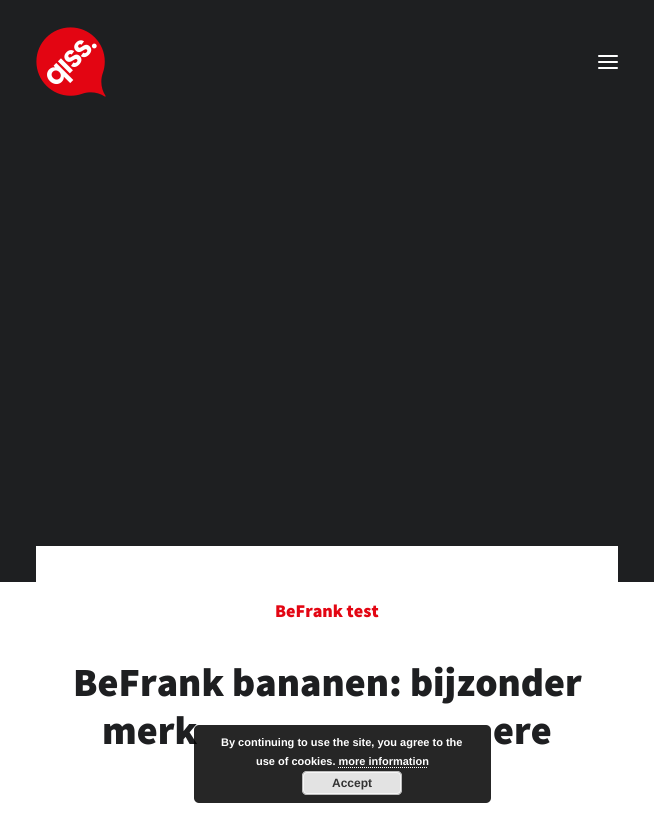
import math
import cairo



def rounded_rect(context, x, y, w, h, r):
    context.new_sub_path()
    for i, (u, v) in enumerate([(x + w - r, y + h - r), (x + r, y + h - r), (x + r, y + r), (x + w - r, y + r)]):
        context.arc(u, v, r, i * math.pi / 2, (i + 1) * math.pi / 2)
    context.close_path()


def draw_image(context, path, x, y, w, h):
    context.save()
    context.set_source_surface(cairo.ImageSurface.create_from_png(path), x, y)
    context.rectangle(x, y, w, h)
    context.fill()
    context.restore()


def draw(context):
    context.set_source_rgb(1, 1, 1)
    context.paint()
    context.set_source_rgb(30 / 255, 31 / 255, 33 / 255)
    context.rectangle(0, 0, 654, 582)
    context.fill()
    draw_image(context, "images/1.png", 36, 27, 70, 70)
    context.set_source_rgb(1, 1, 1)
    rounded_rect(context, 598, 61, 20, 2, 1)
    context.fill()
    rounded_rect(context, 598, 55, 20, 2, 1)
    context.fill()
    rounded_rect(context, 598, 67, 20, 2, 1)
    context.fill()
    context.rectangle(36, 546, 582, 36)
    context.fill()
    context.select_font_face("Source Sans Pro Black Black")
    context.set_font_size(18)
    context.set_source_rgb(227 / 255, 6 / 255, 19 / 255)
    context.move_to(275, 617)
    context.show_text("BeFrank test")
    context.set_font_size(40)
    context.set_source_rgb(30 / 255, 31 / 255, 33 / 255)
    context.move_to(73, 696)
    context.show_text("BeFrank bananen: bijzonder")
    context.move_to(102, 744)
    context.show_text("merk")
    context.move_to(493, 744)
    context.show_text("ere")
    context.set_source_rgba(0, 0, 0, 0.85)
    rounded_rect(context, 194, 725, 297, 78, 5)
    context.fill()
    context.select_font_face("Liberation Sans", cairo.FontSlant.NORMAL, cairo.FontWeight.BOLD)
    context.set_font_size(11)
    context.set_source_rgb(1, 1, 1)
    context.move_to(221, 746)
    context.show_text("By continuing to use the site, you agree to the")
    context.move_to(256, 765)
    context.show_text("use of cookies. more information")
    context.new_path()
    context.move_to(338, 767.5)
    context.line_to(428, 767.5)
    context.set_line_width(1)
    context.set_dash([1, 1])
    context.stroke()
    context.set_source_rgb(227 / 255, 227 / 255, 227 / 255)
    rounded_rect(context, 302, 771, 100, 24, 5)
    context.fill()
    rounded_rect(context, 303.5, 772.5, 97, 21, 3.5)
    context.set_source_rgb(246 / 255, 246 / 255, 246 / 255)
    context.set_dash([])
    context.stroke()
    rounded_rect(context, 302.5, 771.5, 99, 23, 4.5)
    context.set_source_rgb(187 / 255, 187 / 255, 187 / 255)
    context.stroke()
    context.set_font_size(12)
    context.set_source_rgb(51 / 255, 51 / 255, 51 / 255)
    context.move_to(332, 787)
    context.show_text("Accept")


surface = cairo.ImageSurface(cairo.Format.RGB24, 654, 833)
context = cairo.Context(surface)
options = cairo.FontOptions()
options.set_hint_metrics(cairo.HintMetrics.OFF)
options.set_hint_style(cairo.HintStyle.NONE)
context.set_font_options(options)
context.set_miter_limit(4)
draw(context)
surface.write_to_png("out.png")
